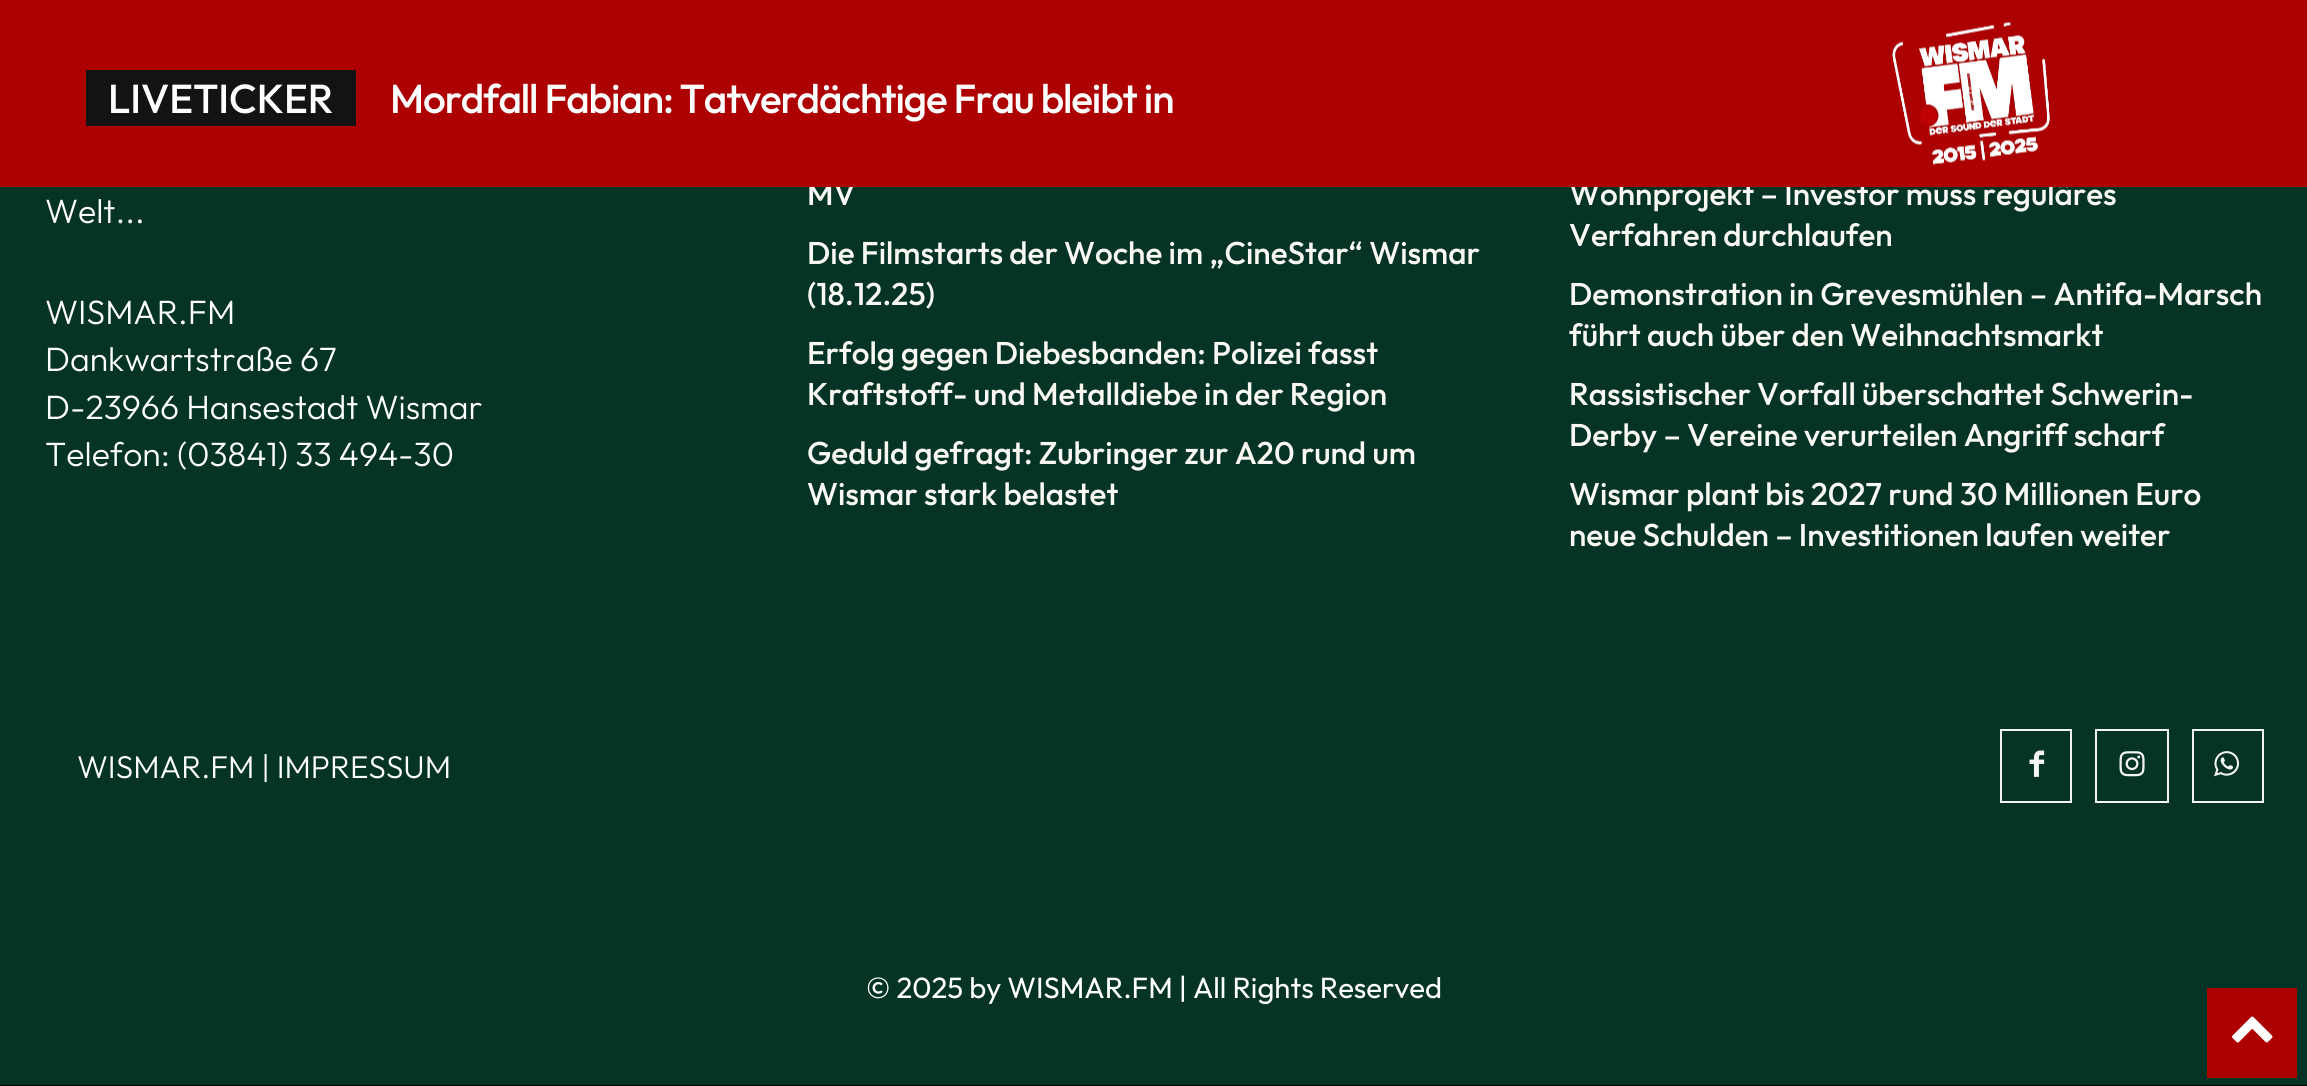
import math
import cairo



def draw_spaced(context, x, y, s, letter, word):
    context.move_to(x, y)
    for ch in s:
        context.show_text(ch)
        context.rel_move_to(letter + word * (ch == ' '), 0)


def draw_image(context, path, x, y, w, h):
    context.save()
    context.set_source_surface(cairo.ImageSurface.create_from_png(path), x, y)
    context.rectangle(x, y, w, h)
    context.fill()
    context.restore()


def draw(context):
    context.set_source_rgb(5 / 255, 52 / 255, 38 / 255)
    context.paint()
    context.rectangle(2001, 730, 70, 72)
    context.set_source_rgb(244 / 255, 244 / 255, 244 / 255)
    context.stroke()
    draw_image(context, "images/2.png", 2029, 750, 16, 27)
    context.rectangle(2096, 730, 72, 72)
    context.stroke()
    draw_image(context, "images/3.png", 2119, 751, 26, 26)
    context.rectangle(2193, 730, 70, 72)
    context.stroke()
    draw_image(context, "images/4.png", 2214, 751, 26, 26)
    context.set_source_rgb(0, 0, 0)
    context.rectangle(0, 1085, 2307, 1)
    context.fill()
    context.set_source_rgb(173 / 255, 0, 0)
    context.rectangle(2207, 988, 90, 90)
    context.fill()
    draw_image(context, "images/5.png", 2232, 1016, 41, 27)
    context.select_font_face("Outfit Light")
    context.set_font_size(33.75)
    context.set_source_rgb(1, 1, 1)
    context.move_to(45, 223)
    context.show_text("Welt...")
    context.move_to(45, 324)
    context.show_text("WISMAR.FM")
    context.move_to(45, 371)
    context.show_text("Dankwartstraße 67")
    context.move_to(45, 419)
    context.show_text("D-23966 Hansestadt Wismar")
    context.move_to(45, 466)
    context.show_text("Telefon: (03841) 33 494-30")
    context.select_font_face("Outfit Medium")
    context.set_font_size(31.5)
    context.set_source_rgb(249 / 255, 248 / 255, 242 / 255)
    context.move_to(807, 205)
    context.show_text("MV")
    context.move_to(807, 264)
    context.show_text("Die Filmstarts der Woche im „CineStar“ Wismar")
    context.move_to(807, 305)
    context.show_text("(18.12.25)")
    context.move_to(807, 364)
    context.show_text("Erfolg gegen Diebesbanden: Polizei fasst")
    context.move_to(807, 405)
    context.show_text("Kraftstoff- und Metalldiebe in der Region")
    context.move_to(807, 464)
    context.show_text("Geduld gefragt: Zubringer zur A20 rund um")
    context.move_to(807, 505)
    context.show_text("Wismar stark belastet")
    context.move_to(1569, 205)
    context.show_text("Wohnprojekt – Investor muss reguläres")
    context.set_source_rgb(173 / 255, 0, 0)
    context.rectangle(0, 0, 2307, 187)
    context.fill()
    draw_image(context, "images/1.png", 1892, 22, 158, 143)
    context.set_font_size(40.5)
    context.set_source_rgb(1, 1, 1)
    draw_spaced(context, 390, 113, "Mordfall Fabian: Tatverdächtige Frau bleibt in", -1.1, 0)
    context.set_source_rgb(19 / 255, 19 / 255, 19 / 255)
    context.rectangle(86, 70, 270, 56)
    context.fill()
    context.set_source_rgb(1, 1, 1)
    context.move_to(108, 113)
    context.show_text("LIVETICKER")
    context.set_font_size(31.5)
    context.set_source_rgb(249 / 255, 248 / 255, 242 / 255)
    context.move_to(1569, 246)
    context.show_text("Verfahren durchlaufen")
    context.move_to(1569, 305)
    context.show_text("Demonstration in Grevesmühlen – Antifa-Marsch")
    context.move_to(1569, 346)
    context.show_text("führt auch über den Weihnachtsmarkt")
    context.move_to(1569, 405)
    context.show_text("Rassistischer Vorfall überschattet Schwerin-")
    context.move_to(1569, 446)
    context.show_text("Derby – Vereine verurteilen Angriff scharf")
    context.move_to(1569, 505)
    context.show_text("Wismar plant bis 2027 rund 30 Millionen Euro")
    context.move_to(1569, 546)
    context.show_text("neue Schulden – Investitionen laufen weiter")
    context.select_font_face("Outfit Light")
    context.set_source_rgb(1, 1, 1)
    context.move_to(77, 778)
    context.show_text("WISMAR.FM | IMPRESSUM")
    context.select_font_face("Outfit Thin")
    context.set_font_size(29.25)
    context.move_to(866, 998)
    context.show_text("© 2025 by WISMAR.FM | All Rights Reserved")


surface = cairo.ImageSurface(cairo.Format.RGB24, 2307, 1086)
context = cairo.Context(surface)
options = cairo.FontOptions()
options.set_hint_metrics(cairo.HintMetrics.OFF)
options.set_hint_style(cairo.HintStyle.NONE)
context.set_font_options(options)
context.set_miter_limit(4)
draw(context)
surface.write_to_png("out.png")
